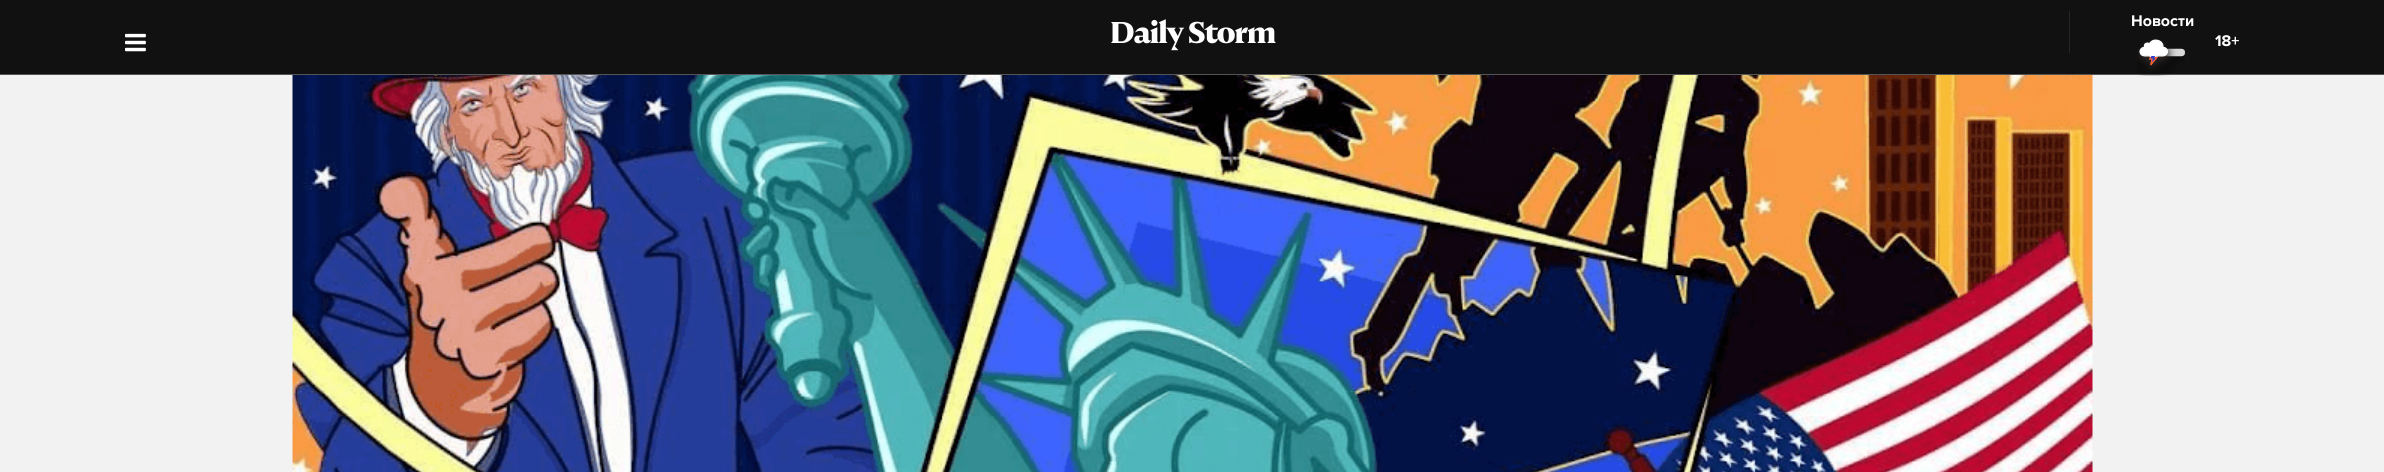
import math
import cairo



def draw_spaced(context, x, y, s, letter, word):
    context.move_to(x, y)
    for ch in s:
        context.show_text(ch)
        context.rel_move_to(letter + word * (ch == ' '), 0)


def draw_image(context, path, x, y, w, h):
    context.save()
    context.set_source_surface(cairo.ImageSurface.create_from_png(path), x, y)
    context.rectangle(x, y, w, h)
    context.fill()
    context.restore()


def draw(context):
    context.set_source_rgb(242 / 255, 242 / 255, 242 / 255)
    context.paint()
    context.set_source_rgb(17 / 255, 17 / 255, 17 / 255)
    context.rectangle(0, 0, 2384, 74)
    context.fill()
    context.set_source_rgb(85 / 255, 85 / 255, 85 / 255)
    context.rectangle(0, 74, 2384, 1)
    context.fill()
    draw_image(context, "images/1.png", 125, 33, 21, 19)
    context.set_source_rgb(39 / 255, 39 / 255, 39 / 255)
    context.rectangle(2069, 11, 1, 42)
    context.fill()
    draw_image(context, "images/2.png", 2137, 39, 48, 37)
    draw_image(context, "images/3.png", 292, 75, 1801, 397)
    context.select_font_face("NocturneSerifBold")
    context.set_font_size(30)
    context.set_source_rgb(1, 1, 1)
    draw_spaced(context, 1110, 43, "Daily Storm", -1.4, 0)
    context.select_font_face("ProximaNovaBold")
    context.set_font_size(16)
    context.move_to(2131, 26)
    context.show_text("Новости")
    context.move_to(2215, 46)
    context.show_text("18+")


surface = cairo.ImageSurface(cairo.Format.RGB24, 2384, 472)
context = cairo.Context(surface)
options = cairo.FontOptions()
options.set_hint_metrics(cairo.HintMetrics.OFF)
options.set_hint_style(cairo.HintStyle.NONE)
context.set_font_options(options)
context.set_miter_limit(4)
draw(context)
surface.write_to_png("out.png")
